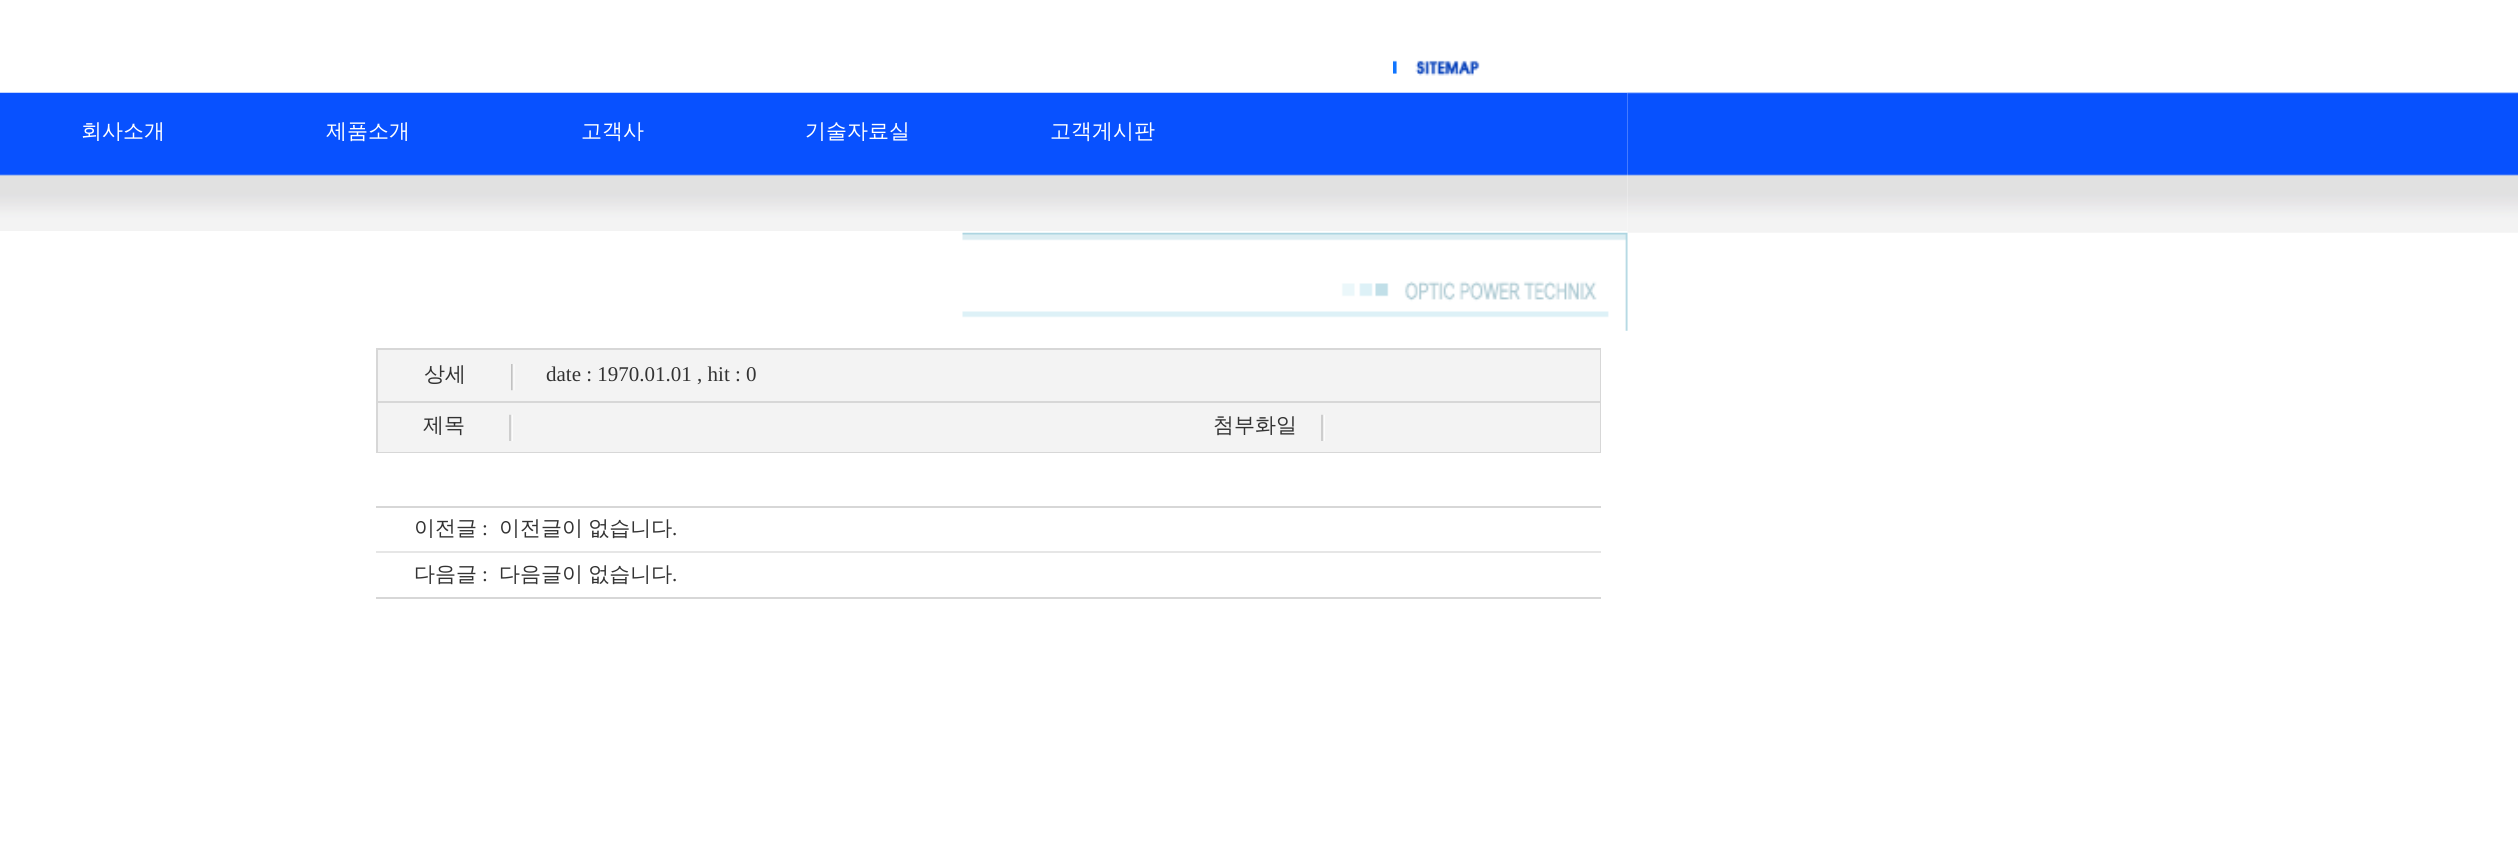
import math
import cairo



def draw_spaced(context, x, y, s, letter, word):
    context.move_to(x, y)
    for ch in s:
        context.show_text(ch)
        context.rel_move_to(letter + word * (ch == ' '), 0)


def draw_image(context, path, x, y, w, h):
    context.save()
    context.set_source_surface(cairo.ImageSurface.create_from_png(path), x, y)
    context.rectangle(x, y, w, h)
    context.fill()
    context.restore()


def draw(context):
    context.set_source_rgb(1, 1, 1)
    context.paint()
    draw_image(context, "images/1.png", 1393, 60, 87, 16)
    draw_image(context, "images/6.png", 1627, 92, 891, 141)
    draw_image(context, "images/2.png", 0, 92, 1628, 139)
    draw_image(context, "images/3.png", 962, 232, 666, 99)
    context.set_source_rgb(215 / 255, 215 / 255, 215 / 255)
    context.rectangle(376, 348, 1225, 105)
    context.fill()
    context.set_source_rgb(243 / 255, 243 / 255, 243 / 255)
    context.rectangle(378, 350, 1222, 51)
    context.fill()
    draw_image(context, "images/4.png", 511, 364, 4, 27)
    context.rectangle(378, 403, 1222, 49)
    context.fill()
    draw_image(context, "images/5.png", 509, 414, 4, 27)
    draw_image(context, "images/5.png", 1321, 414, 4, 27)
    context.set_source_rgb(215 / 255, 215 / 255, 215 / 255)
    context.rectangle(376, 506, 1225, 2)
    context.fill()
    context.set_source_rgb(230 / 255, 230 / 255, 230 / 255)
    context.rectangle(376, 551, 1225, 2)
    context.fill()
    context.set_source_rgb(215 / 255, 215 / 255, 215 / 255)
    context.rectangle(376, 597, 1225, 2)
    context.fill()
    context.select_font_face("WenQuanYi Zen Hei Medium")
    context.set_font_size(21)
    context.set_source_rgb(1, 1, 1)
    context.move_to(81, 138)
    context.show_text("회사소개")
    context.move_to(326, 138)
    context.show_text("제품소개")
    context.move_to(581, 138)
    context.show_text("고객사")
    context.move_to(805, 138)
    context.show_text("기술자료실")
    context.move_to(1050, 138)
    context.show_text("고객게시판")
    context.set_source_rgb(51 / 255, 51 / 255, 51 / 255)
    context.move_to(424, 381)
    context.show_text("상세")
    context.select_font_face("Liberation Serif")
    context.move_to(546, 381)
    context.show_text("date : 1970.01.01 , hit : 0")
    context.select_font_face("WenQuanYi Zen Hei Medium")
    context.move_to(423, 432)
    context.show_text("제목")
    context.move_to(1213, 432)
    context.show_text("첨부화일")
    context.move_to(414, 535)
    context.show_text("이전글")
    context.select_font_face("Liberation Serif")
    context.move_to(482, 535)
    context.show_text(":")
    context.select_font_face("WenQuanYi Zen Hei Medium")
    draw_spaced(context, 499, 535, "이전글이 없습니다", 0, -1)
    context.select_font_face("Liberation Serif")
    context.move_to(672, 535)
    context.show_text(".")
    context.select_font_face("WenQuanYi Zen Hei Medium")
    context.move_to(414, 581)
    context.show_text("다음글")
    context.select_font_face("Liberation Serif")
    context.move_to(482, 581)
    context.show_text(":")
    context.select_font_face("WenQuanYi Zen Hei Medium")
    draw_spaced(context, 499, 581, "다음글이 없습니다", 0, -1)
    context.select_font_face("Liberation Serif")
    context.move_to(672, 581)
    context.show_text(".")


surface = cairo.ImageSurface(cairo.Format.RGB24, 2518, 866)
context = cairo.Context(surface)
options = cairo.FontOptions()
options.set_hint_metrics(cairo.HintMetrics.OFF)
options.set_hint_style(cairo.HintStyle.NONE)
context.set_font_options(options)
context.set_miter_limit(4)
draw(context)
surface.write_to_png("out.png")
